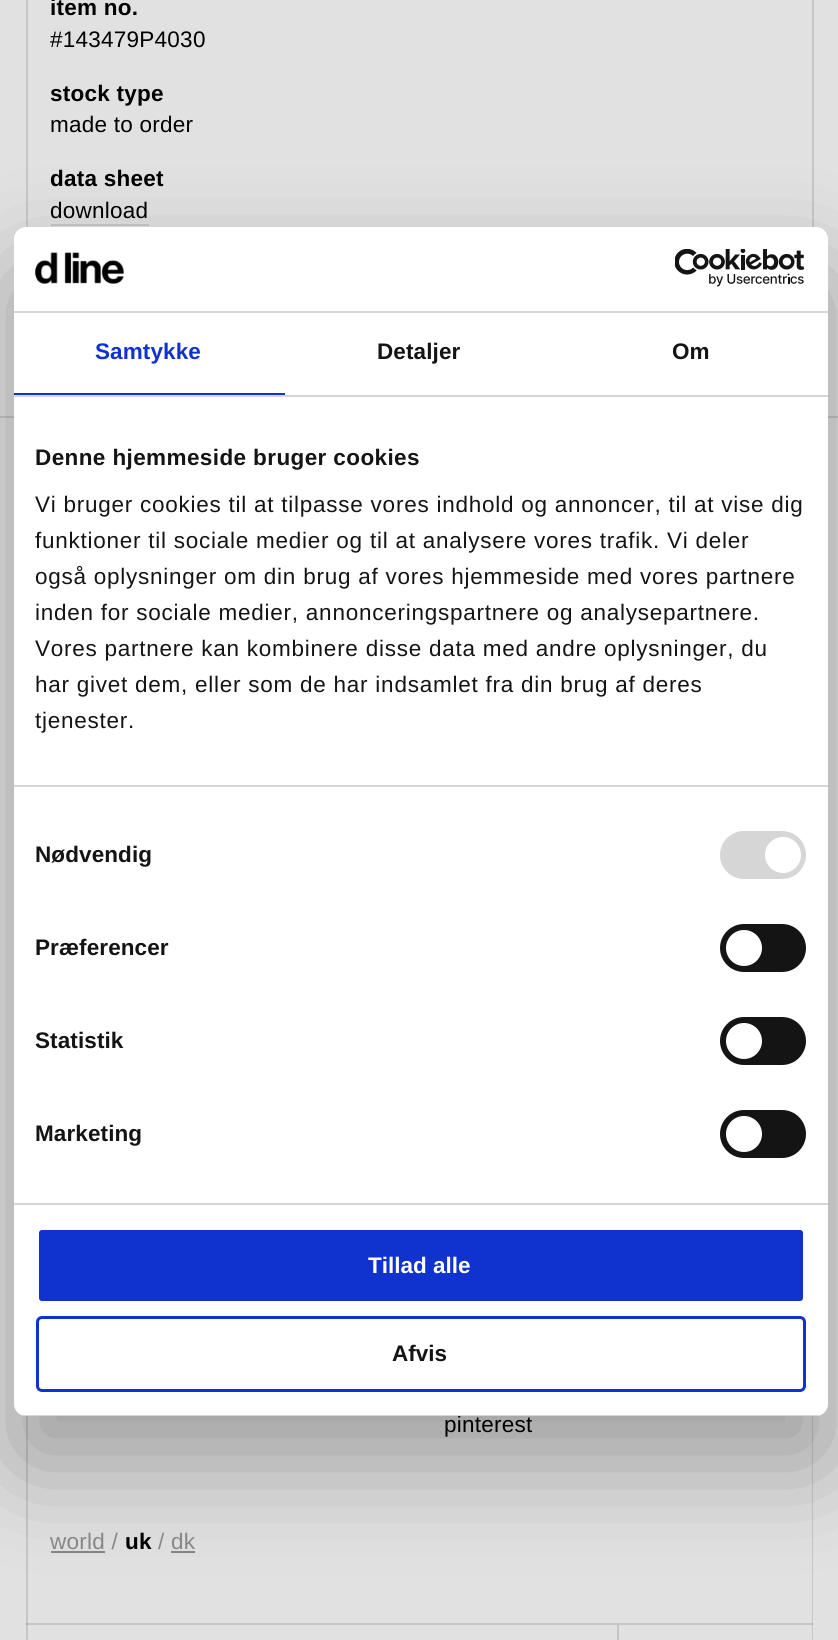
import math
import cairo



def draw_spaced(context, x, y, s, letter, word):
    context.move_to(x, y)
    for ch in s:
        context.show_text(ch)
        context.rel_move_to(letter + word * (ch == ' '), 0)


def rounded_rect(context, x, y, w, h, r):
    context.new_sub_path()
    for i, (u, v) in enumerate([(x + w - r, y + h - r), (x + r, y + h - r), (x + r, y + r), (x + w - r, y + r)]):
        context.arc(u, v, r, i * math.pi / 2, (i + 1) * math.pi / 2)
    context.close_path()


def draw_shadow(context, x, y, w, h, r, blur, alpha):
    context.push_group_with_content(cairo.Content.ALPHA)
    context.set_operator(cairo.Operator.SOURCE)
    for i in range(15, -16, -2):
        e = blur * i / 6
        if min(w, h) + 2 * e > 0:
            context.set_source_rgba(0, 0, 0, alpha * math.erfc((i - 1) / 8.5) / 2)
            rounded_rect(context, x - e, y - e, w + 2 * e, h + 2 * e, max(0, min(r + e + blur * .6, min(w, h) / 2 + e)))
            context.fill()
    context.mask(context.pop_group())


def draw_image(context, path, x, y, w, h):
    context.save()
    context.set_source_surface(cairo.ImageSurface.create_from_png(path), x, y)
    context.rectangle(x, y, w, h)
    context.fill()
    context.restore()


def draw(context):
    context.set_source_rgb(225 / 255, 225 / 255, 225 / 255)
    context.paint()
    context.set_source_rgb(198 / 255, 198 / 255, 198 / 255)
    context.rectangle(812, 1416, 1, 224)
    context.fill()
    context.rectangle(26, 1623, 787, 2)
    context.fill()
    context.set_source_rgb(174 / 255, 174 / 255, 174 / 255)
    context.rectangle(812, 1623, 1, 2)
    context.fill()
    context.set_source_rgb(198 / 255, 198 / 255, 198 / 255)
    context.rectangle(26, 1416, 2, 224)
    context.fill()
    context.set_source_rgb(174 / 255, 174 / 255, 174 / 255)
    context.rectangle(26, 1623, 2, 2)
    context.fill()
    context.set_source_rgb(198 / 255, 198 / 255, 198 / 255)
    context.rectangle(812, 0, 2, 227)
    context.fill()
    context.rectangle(0, 416, 838, 2)
    context.fill()
    context.rectangle(26, 0, 2, 227)
    context.fill()
    context.rectangle(51, 224, 98, 2)
    context.fill()
    context.set_source_rgb(135 / 255, 135 / 255, 135 / 255)
    context.rectangle(51, 1551, 54, 2)
    context.fill()
    context.rectangle(171, 1551, 24, 2)
    context.fill()
    context.set_source_rgb(198 / 255, 198 / 255, 198 / 255)
    context.rectangle(617, 1625, 2, 15)
    context.fill()
    context.set_source_rgb(0, 0, 0)
    draw_shadow(context, 14, 275, 814, 1189, 12, 51, 0.3)
    context.select_font_face("Liberation Sans", cairo.FontSlant.NORMAL, cairo.FontWeight.BOLD)
    context.set_font_size(22.5)
    context.set_source_rgb(0, 0, 0)
    draw_spaced(context, 50, 15, "item no.", 0.25, 0)
    context.select_font_face("Liberation Sans")
    draw_spaced(context, 50, 47, "#143479P4030", 0.25, 0)
    context.select_font_face("Liberation Sans", cairo.FontSlant.NORMAL, cairo.FontWeight.BOLD)
    draw_spaced(context, 50, 101, "stock type", 0.25, 0)
    context.select_font_face("Liberation Sans")
    draw_spaced(context, 50, 132, "made to order", 0.25, 0)
    context.select_font_face("Liberation Sans", cairo.FontSlant.NORMAL, cairo.FontWeight.BOLD)
    draw_spaced(context, 50, 186, "data sheet", 0.25, 0)
    context.select_font_face("Liberation Sans")
    draw_spaced(context, 50, 218, "download", 0.25, 0)
    draw_spaced(context, 444, 1432, "pinterest", 0.25, 0)
    context.set_source_rgb(135 / 255, 135 / 255, 135 / 255)
    draw_spaced(context, 50, 1549, "world /", 0.25, 0)
    context.select_font_face("Liberation Sans", cairo.FontSlant.NORMAL, cairo.FontWeight.BOLD)
    context.set_source_rgb(0, 0, 0)
    draw_spaced(context, 125, 1549, "uk", 0.25, 0)
    context.select_font_face("Liberation Sans")
    context.set_source_rgb(135 / 255, 135 / 255, 135 / 255)
    draw_spaced(context, 158, 1549, "/ dk", 0.25, 0)
    context.set_source_rgb(1, 1, 1)
    rounded_rect(context, 14, 227, 814, 1189, 12)
    context.fill()
    context.set_source_rgb(214 / 255, 214 / 255, 214 / 255)
    context.rectangle(14, 311, 814, 2)
    context.fill()
    draw_image(context, "images/1.png", 35, 252, 89, 32)
    draw_image(context, "images/2.png", 675, 249, 130, 38)
    context.rectangle(14, 395, 814, 2)
    context.fill()
    context.set_source_rgb(16 / 255, 50 / 255, 207 / 255)
    context.rectangle(14, 393, 271, 2)
    context.fill()
    context.select_font_face("Liberation Sans", cairo.FontSlant.NORMAL, cairo.FontWeight.BOLD)
    draw_spaced(context, 95, 359, "Samtykke", 0.1, 0)
    context.set_source_rgb(20 / 255, 20 / 255, 20 / 255)
    draw_spaced(context, 377, 359, "Detaljer", 0.1, 0)
    draw_spaced(context, 672, 359, "Om", 0.1, 0)
    context.set_source_rgb(214 / 255, 214 / 255, 214 / 255)
    context.rectangle(14, 785, 814, 2)
    context.fill()
    context.set_source_rgb(20 / 255, 20 / 255, 20 / 255)
    draw_spaced(context, 35, 465, "Denne hjemmeside bruger cookies", 0.4, 0)
    context.select_font_face("Liberation Sans")
    draw_spaced(context, 35, 512, "Vi bruger cookies til at tilpasse vores indhold og annoncer, til at vise dig", 0.75, 0)
    draw_spaced(context, 35, 548, "funktioner til sociale medier og til at analysere vores trafik. Vi deler", 0.75, 0)
    draw_spaced(context, 35, 584, "også oplysninger om din brug af vores hjemmeside med vores partnere", 0.75, 0)
    draw_spaced(context, 35, 620, "inden for sociale medier, annonceringspartnere og analysepartnere.", 0.75, 0)
    draw_spaced(context, 35, 656, "Vores partnere kan kombinere disse data med andre oplysninger, du", 0.75, 0)
    draw_spaced(context, 35, 692, "har givet dem, eller som de har indsamlet fra din brug af deres", 0.75, 0)
    draw_spaced(context, 35, 728, "tjenester.", 0.75, 0)
    context.set_source_rgb(214 / 255, 214 / 255, 214 / 255)
    context.rectangle(14, 1203, 814, 2)
    context.fill()
    context.select_font_face("Liberation Sans", cairo.FontSlant.NORMAL, cairo.FontWeight.BOLD)
    context.set_source_rgb(20 / 255, 20 / 255, 20 / 255)
    draw_spaced(context, 35, 862, "Nødvendig", 0.1, 0)
    context.set_source_rgb(214 / 255, 214 / 255, 214 / 255)
    rounded_rect(context, 720, 831, 86, 48, 24)
    context.fill()
    context.set_source_rgb(1, 1, 1)
    context.arc(783, 855, 18, 0, 2 * math.pi)
    context.fill()
    context.set_source_rgb(20 / 255, 20 / 255, 20 / 255)
    draw_spaced(context, 35, 955, "Præferencer", 0.1, 0)
    rounded_rect(context, 720, 924, 86, 48, 24)
    context.fill()
    context.set_source_rgb(1, 1, 1)
    context.arc(744, 948, 18, 0, 2 * math.pi)
    context.fill()
    context.set_source_rgb(20 / 255, 20 / 255, 20 / 255)
    draw_spaced(context, 35, 1048, "Statistik", 0.1, 0)
    rounded_rect(context, 720, 1017, 86, 48, 24)
    context.fill()
    context.set_source_rgb(1, 1, 1)
    context.arc(744, 1041, 18, 0, 2 * math.pi)
    context.fill()
    context.set_source_rgb(20 / 255, 20 / 255, 20 / 255)
    draw_spaced(context, 35, 1141, "Marketing", 0.1, 0)
    rounded_rect(context, 720, 1110, 86, 48, 24)
    context.fill()
    context.set_source_rgb(1, 1, 1)
    context.arc(744, 1134, 18, 0, 2 * math.pi)
    context.fill()
    context.save()
    rounded_rect(context, 14, 227, 814, 1189, 12)
    context.clip()
    context.set_source_rgb(214 / 255, 214 / 255, 214 / 255)
    context.rectangle(14, 1415, 814, 1)
    context.fill()
    context.restore()
    context.set_source_rgb(16 / 255, 50 / 255, 207 / 255)
    rounded_rect(context, 37.5, 1228.5, 767, 74, 4.5)
    context.fill_preserve()
    context.set_source_rgb(1, 1, 1)
    context.set_line_width(3)
    context.stroke()
    context.move_to(368, 1273)
    context.show_text("Tillad alle")
    rounded_rect(context, 37.5, 1317.5, 767, 73, 4.5)
    context.set_source_rgb(16 / 255, 50 / 255, 207 / 255)
    context.stroke()
    context.set_source_rgb(20 / 255, 20 / 255, 20 / 255)
    context.move_to(392, 1361)
    context.show_text("Afvis")


surface = cairo.ImageSurface(cairo.Format.RGB24, 838, 1640)
context = cairo.Context(surface)
options = cairo.FontOptions()
options.set_hint_metrics(cairo.HintMetrics.OFF)
options.set_hint_style(cairo.HintStyle.NONE)
context.set_font_options(options)
context.set_miter_limit(4)
draw(context)
surface.write_to_png("out.png")
